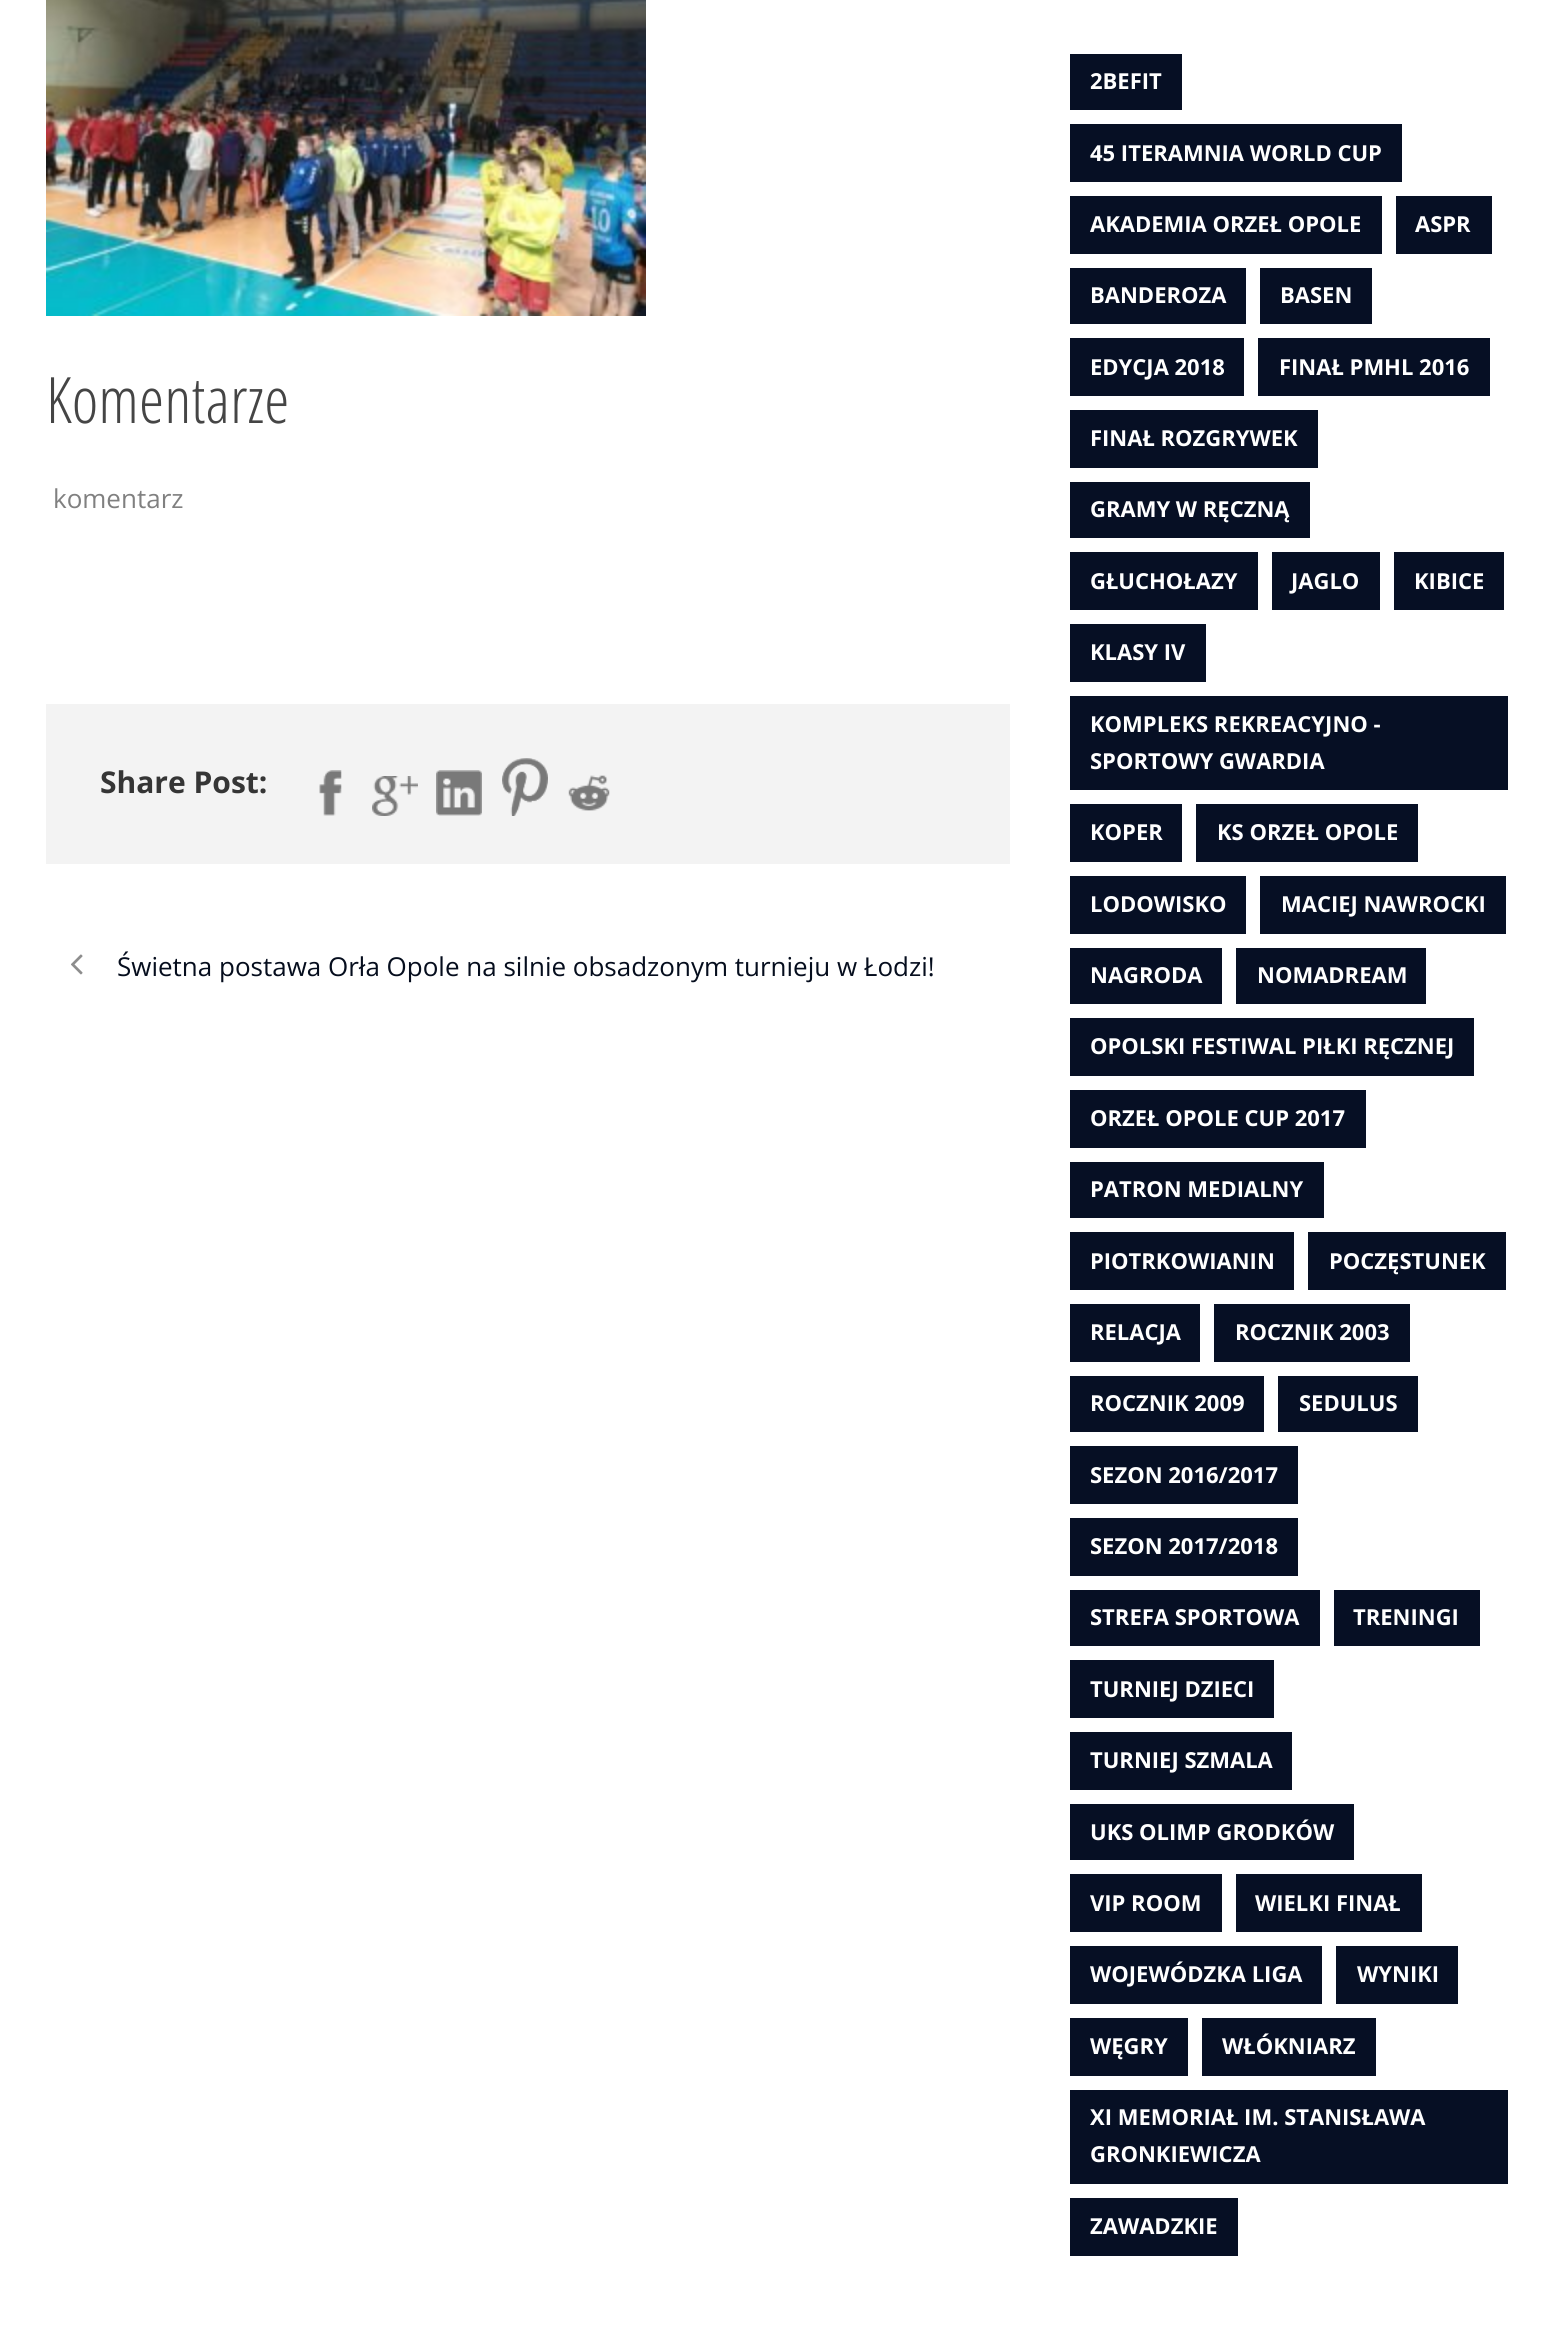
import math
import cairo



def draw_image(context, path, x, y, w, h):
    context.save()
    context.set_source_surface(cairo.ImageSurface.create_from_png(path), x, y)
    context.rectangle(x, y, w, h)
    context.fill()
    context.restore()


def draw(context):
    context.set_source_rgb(1, 1, 1)
    context.paint()
    draw_image(context, "images/1.png", 46, 0, 600, 316)
    context.set_source_rgb(243 / 255, 243 / 255, 243 / 255)
    context.rectangle(46, 704, 964, 160)
    context.fill()
    draw_image(context, "images/2.png", 319, 770, 23, 46)
    draw_image(context, "images/3.png", 372, 776, 46, 40)
    draw_image(context, "images/4.png", 436, 770, 46, 46)
    draw_image(context, "images/5.png", 502, 758, 46, 58)
    draw_image(context, "images/6.png", 568, 775, 42, 36)
    draw_image(context, "images/7.png", 71, 954, 12, 21)
    context.set_source_rgb(6 / 255, 15 / 255, 36 / 255)
    context.rectangle(1070, 54, 112, 56)
    context.fill()
    context.rectangle(1070, 124, 332, 58)
    context.fill()
    context.rectangle(1070, 196, 312, 58)
    context.fill()
    context.rectangle(1396, 196, 96, 58)
    context.fill()
    context.rectangle(1070, 268, 176, 56)
    context.fill()
    context.rectangle(1260, 268, 112, 56)
    context.fill()
    context.rectangle(1070, 338, 174, 58)
    context.fill()
    context.rectangle(1258, 338, 232, 58)
    context.fill()
    context.rectangle(1070, 410, 248, 58)
    context.fill()
    context.rectangle(1070, 482, 240, 56)
    context.fill()
    context.rectangle(1070, 552, 188, 58)
    context.fill()
    context.rectangle(1272, 552, 108, 58)
    context.fill()
    context.rectangle(1394, 552, 110, 58)
    context.fill()
    context.rectangle(1070, 624, 136, 58)
    context.fill()
    context.rectangle(1070, 696, 438, 94)
    context.fill()
    context.rectangle(1070, 804, 112, 58)
    context.fill()
    context.rectangle(1196, 804, 222, 58)
    context.fill()
    context.rectangle(1070, 876, 176, 58)
    context.fill()
    context.rectangle(1260, 876, 246, 58)
    context.fill()
    context.rectangle(1070, 948, 152, 56)
    context.fill()
    context.rectangle(1236, 948, 190, 56)
    context.fill()
    context.rectangle(1070, 1018, 404, 58)
    context.fill()
    context.rectangle(1070, 1090, 296, 58)
    context.fill()
    context.rectangle(1070, 1162, 254, 56)
    context.fill()
    context.rectangle(1070, 1232, 224, 58)
    context.fill()
    context.rectangle(1308, 1232, 198, 58)
    context.fill()
    context.rectangle(1070, 1304, 130, 58)
    context.fill()
    context.rectangle(1214, 1304, 196, 58)
    context.fill()
    context.rectangle(1070, 1376, 194, 56)
    context.fill()
    context.rectangle(1278, 1376, 140, 56)
    context.fill()
    context.rectangle(1070, 1446, 228, 58)
    context.fill()
    context.rectangle(1070, 1518, 228, 58)
    context.fill()
    context.rectangle(1070, 1590, 250, 56)
    context.fill()
    context.rectangle(1334, 1590, 146, 56)
    context.fill()
    context.rectangle(1070, 1660, 204, 58)
    context.fill()
    context.rectangle(1070, 1732, 222, 58)
    context.fill()
    context.rectangle(1070, 1804, 284, 56)
    context.fill()
    context.rectangle(1070, 1874, 152, 58)
    context.fill()
    context.rectangle(1236, 1874, 186, 58)
    context.fill()
    context.rectangle(1070, 1946, 252, 58)
    context.fill()
    context.rectangle(1336, 1946, 122, 58)
    context.fill()
    context.rectangle(1070, 2018, 118, 58)
    context.fill()
    context.rectangle(1202, 2018, 174, 58)
    context.fill()
    context.rectangle(1070, 2090, 438, 94)
    context.fill()
    context.rectangle(1070, 2198, 168, 58)
    context.fill()
    context.select_font_face("Open Sans Condensed Light")
    context.set_font_size(64)
    context.set_source_rgb(69 / 255, 69 / 255, 69 / 255)
    context.move_to(46, 423)
    context.show_text("Komentarze")
    context.select_font_face("Open Sans")
    context.set_font_size(26)
    context.set_source_rgb(128 / 255, 128 / 255, 128 / 255)
    context.move_to(53, 508)
    context.show_text("komentarz")
    context.select_font_face("Open Sans", cairo.FontSlant.NORMAL, cairo.FontWeight.BOLD)
    context.set_font_size(30)
    context.set_source_rgb(53 / 255, 53 / 255, 53 / 255)
    context.move_to(100, 793)
    context.show_text("Share Post:")
    context.select_font_face("Open Sans")
    context.set_font_size(26)
    context.set_source_rgb(5 / 255, 13 / 255, 29 / 255)
    context.move_to(117, 976)
    context.show_text("Świetna postawa Orła Opole na silnie obsadzonym turnieju w Łodzi!")
    context.select_font_face("Open Sans", cairo.FontSlant.NORMAL, cairo.FontWeight.BOLD)
    context.set_font_size(22)
    context.set_source_rgb(1, 1, 1)
    context.move_to(1090, 89)
    context.show_text("2BEFIT")
    context.move_to(1090, 161)
    context.show_text("45 ITERAMNIA WORLD CUP")
    context.move_to(1090, 232)
    context.show_text("AKADEMIA ORZEŁ OPOLE")
    context.move_to(1415, 232)
    context.show_text("ASPR")
    context.move_to(1090, 303)
    context.show_text("BANDEROZA")
    context.move_to(1280, 303)
    context.show_text("BASEN")
    context.move_to(1090, 375)
    context.show_text("EDYCJA 2018")
    context.move_to(1279, 375)
    context.show_text("FINAŁ PMHL 2016")
    context.move_to(1090, 446)
    context.show_text("FINAŁ ROZGRYWEK")
    context.move_to(1090, 517)
    context.show_text("GRAMY W RĘCZNĄ")
    context.move_to(1090, 589)
    context.show_text("GŁUCHOŁAZY")
    context.move_to(1291, 589)
    context.show_text("JAGLO")
    context.move_to(1414, 589)
    context.show_text("KIBICE")
    context.move_to(1090, 660)
    context.show_text("KLASY IV")
    context.move_to(1090, 732)
    context.show_text("KOMPLEKS REKREACYJNO -")
    context.move_to(1090, 769)
    context.show_text("SPORTOWY GWARDIA")
    context.move_to(1090, 840)
    context.show_text("KOPER")
    context.move_to(1217, 840)
    context.show_text("KS ORZEŁ OPOLE")
    context.move_to(1090, 912)
    context.show_text("LODOWISKO")
    context.move_to(1281, 912)
    context.show_text("MACIEJ NAWROCKI")
    context.move_to(1090, 983)
    context.show_text("NAGRODA")
    context.move_to(1257, 983)
    context.show_text("NOMADREAM")
    context.move_to(1090, 1054)
    context.show_text("OPOLSKI FESTIWAL PIŁKI RĘCZNEJ")
    context.move_to(1090, 1126)
    context.show_text("ORZEŁ OPOLE CUP 2017")
    context.move_to(1090, 1197)
    context.show_text("PATRON MEDIALNY")
    context.move_to(1090, 1269)
    context.show_text("PIOTRKOWIANIN")
    context.move_to(1329, 1269)
    context.show_text("POCZĘSTUNEK")
    context.move_to(1090, 1340)
    context.show_text("RELACJA")
    context.move_to(1235, 1340)
    context.show_text("ROCZNIK 2003")
    context.move_to(1090, 1411)
    context.show_text("ROCZNIK 2009")
    context.move_to(1299, 1411)
    context.show_text("SEDULUS")
    context.move_to(1090, 1483)
    context.show_text("SEZON 2016/2017")
    context.move_to(1090, 1554)
    context.show_text("SEZON 2017/2018")
    context.move_to(1090, 1625)
    context.show_text("STREFA SPORTOWA")
    context.move_to(1353, 1625)
    context.show_text("TRENINGI")
    context.move_to(1090, 1697)
    context.show_text("TURNIEJ DZIECI")
    context.move_to(1090, 1768)
    context.show_text("TURNIEJ SZMALA")
    context.move_to(1090, 1840)
    context.show_text("UKS OLIMP GRODKÓW")
    context.move_to(1090, 1911)
    context.show_text("VIP ROOM")
    context.move_to(1255, 1911)
    context.show_text("WIELKI FINAŁ")
    context.move_to(1090, 1982)
    context.show_text("WOJEWÓDZKA LIGA")
    context.move_to(1357, 1982)
    context.show_text("WYNIKI")
    context.move_to(1090, 2054)
    context.show_text("WĘGRY")
    context.move_to(1222, 2054)
    context.show_text("WŁÓKNIARZ")
    context.move_to(1090, 2125)
    context.show_text("XI MEMORIAŁ IM. STANISŁAWA")
    context.move_to(1090, 2162)
    context.show_text("GRONKIEWICZA")
    context.move_to(1090, 2234)
    context.show_text("ZAWADZKIE")


surface = cairo.ImageSurface(cairo.Format.RGB24, 1568, 2351)
context = cairo.Context(surface)
options = cairo.FontOptions()
options.set_hint_metrics(cairo.HintMetrics.OFF)
options.set_hint_style(cairo.HintStyle.NONE)
context.set_font_options(options)
context.set_miter_limit(4)
draw(context)
surface.write_to_png("out.png")
